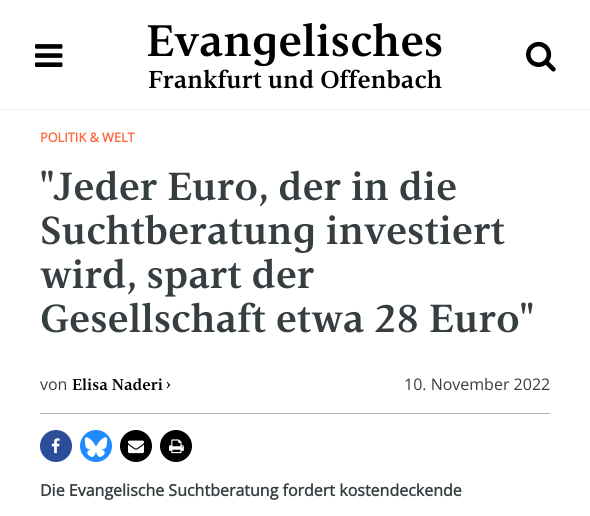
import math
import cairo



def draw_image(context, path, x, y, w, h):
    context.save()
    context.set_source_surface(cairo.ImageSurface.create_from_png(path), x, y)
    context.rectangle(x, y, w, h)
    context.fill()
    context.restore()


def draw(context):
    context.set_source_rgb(1, 1, 1)
    context.paint()
    context.set_source_rgb(238 / 255, 238 / 255, 238 / 255)
    context.rectangle(0, 109, 590, 1)
    context.fill()
    draw_image(context, "images/1.png", 35, 44, 28, 23)
    draw_image(context, "images/2.png", 526, 41, 30, 31)
    context.set_source_rgb(178 / 255, 178 / 255, 178 / 255)
    context.rectangle(40, 413, 510, 1)
    context.fill()
    context.set_source_rgb(44 / 255, 77 / 255, 152 / 255)
    context.arc(56, 446, 16, 0, 2 * math.pi)
    context.fill()
    draw_image(context, "images/3.png", 51, 438, 9, 16)
    draw_image(context, "images/4.png", 80, 430, 32, 32)
    context.set_source_rgb(0, 0, 0)
    context.arc(136, 446, 16, 0, 2 * math.pi)
    context.fill()
    draw_image(context, "images/5.png", 128, 440, 16, 14)
    context.arc(176, 446, 16, 0, 2 * math.pi)
    context.fill()
    draw_image(context, "images/6.png", 169, 439, 15, 15)
    context.select_font_face("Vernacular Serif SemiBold")
    context.set_font_size(45)
    context.move_to(146, 56)
    context.show_text("Evangelisches")
    context.set_font_size(25)
    context.move_to(148, 88)
    context.show_text("Frankfurt und Offenbach")
    context.select_font_face("Open Sans", cairo.FontSlant.NORMAL, cairo.FontWeight.BOLD)
    context.set_font_size(12.75)
    context.set_source_rgb(1, 102 / 255, 64 / 255)
    context.move_to(40, 142)
    context.show_text("POLITIK & WELT")
    context.select_font_face("Vernacular Serif SemiBold")
    context.set_font_size(40)
    context.set_source_rgb(54 / 255, 62 / 255, 65 / 255)
    context.move_to(40, 200)
    context.show_text("\"Jeder Euro, der in die")
    context.move_to(40, 244)
    context.show_text("Suchtberatung investiert")
    context.move_to(40, 288)
    context.show_text("wird, spart der")
    context.move_to(40, 332)
    context.show_text("Gesellschaft etwa 28 Euro\"")
    context.select_font_face("Open Sans")
    context.set_font_size(16)
    context.move_to(40, 390)
    context.show_text("von")
    context.select_font_face("Vernacular Serif SemiBold")
    context.set_source_rgb(0, 0, 0)
    context.move_to(72, 390)
    context.show_text("Elisa Naderi")
    context.move_to(166, 389)
    context.show_text("›")
    context.select_font_face("Open Sans")
    context.set_source_rgb(54 / 255, 62 / 255, 65 / 255)
    context.move_to(404, 390)
    context.show_text("10. November 2022")
    context.select_font_face("Open Sans", cairo.FontSlant.NORMAL, cairo.FontWeight.BOLD)
    context.move_to(40, 496)
    context.show_text("Die Evangelische Suchtberatung fordert kostendeckende")


surface = cairo.ImageSurface(cairo.Format.RGB24, 590, 516)
context = cairo.Context(surface)
options = cairo.FontOptions()
options.set_hint_metrics(cairo.HintMetrics.OFF)
options.set_hint_style(cairo.HintStyle.NONE)
context.set_font_options(options)
context.set_miter_limit(4)
draw(context)
surface.write_to_png("out.png")
